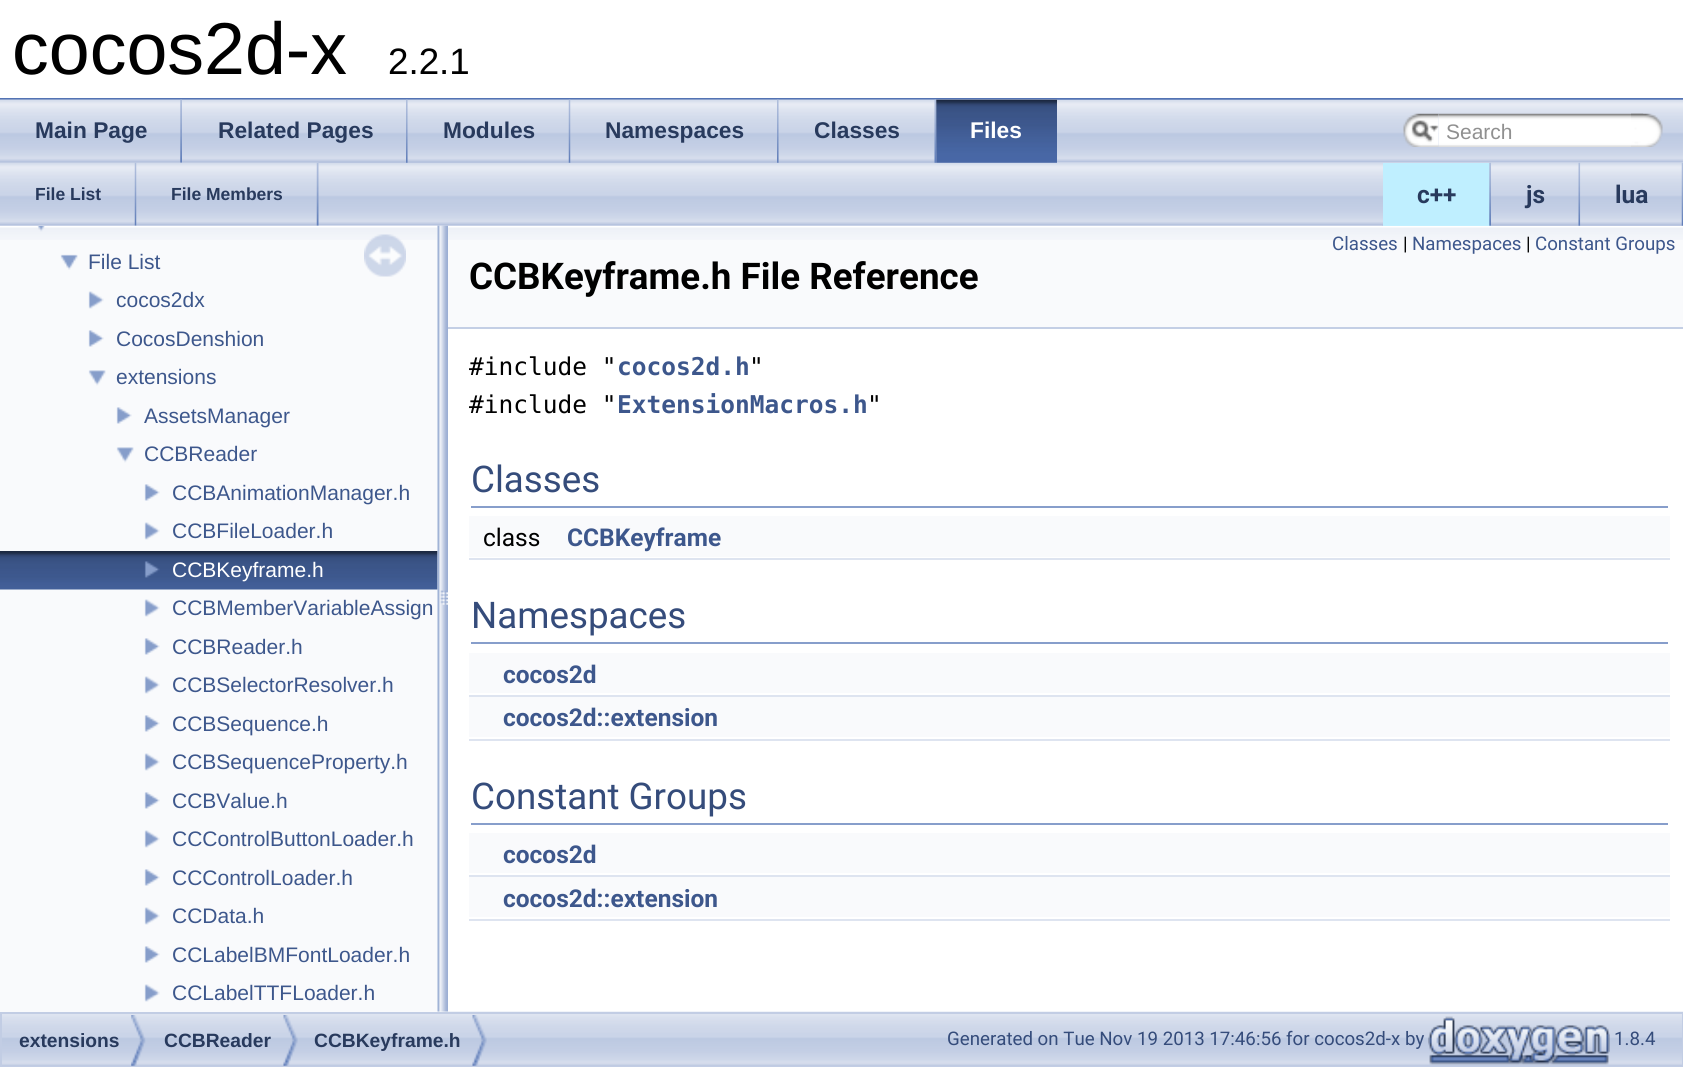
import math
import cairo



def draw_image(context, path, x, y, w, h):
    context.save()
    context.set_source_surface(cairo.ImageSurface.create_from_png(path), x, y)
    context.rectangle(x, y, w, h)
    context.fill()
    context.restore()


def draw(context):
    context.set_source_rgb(1, 1, 1)
    context.paint()
    context.set_source_rgb(83 / 255, 115 / 255, 180 / 255)
    context.rectangle(0, 98, 1683, 2)
    context.fill()
    draw_image(context, "images/1.png", 0, 99, 1683, 64)
    draw_image(context, "images/17.png", 0, 162, 1683, 64)
    draw_image(context, "images/2.png", 0, 99, 182, 64)
    draw_image(context, "images/3.png", 180, 99, 2, 64)
    draw_image(context, "images/4.png", 182, 99, 226, 64)
    draw_image(context, "images/5.png", 406, 99, 2, 64)
    draw_image(context, "images/6.png", 407, 99, 164, 64)
    draw_image(context, "images/7.png", 568, 99, 3, 64)
    draw_image(context, "images/8.png", 570, 99, 209, 64)
    draw_image(context, "images/5.png", 777, 99, 2, 64)
    draw_image(context, "images/9.png", 778, 99, 159, 64)
    draw_image(context, "images/10.png", 934, 99, 3, 64)
    draw_image(context, "images/11.png", 936, 99, 121, 64)
    draw_image(context, "images/12.png", 936, 99, 121, 64)
    draw_image(context, "images/13.png", 1403, 113, 36, 34)
    draw_image(context, "images/14.png", 1411, 120, 28, 22)
    draw_image(context, "images/15.png", 1438, 113, 206, 34)
    draw_image(context, "images/16.png", 1631, 113, 32, 34)
    draw_image(context, "images/18.png", 0, 162, 137, 64)
    draw_image(context, "images/19.png", 134, 162, 3, 64)
    draw_image(context, "images/20.png", 136, 162, 183, 64)
    draw_image(context, "images/19.png", 316, 162, 3, 64)
    draw_image(context, "images/21.png", 1382, 225, 1, 1)
    context.set_source_rgb(191 / 255, 239 / 255, 1)
    context.rectangle(1383, 163, 108, 63)
    context.fill()
    draw_image(context, "images/22.png", 1489, 162, 2, 64)
    context.set_source_rgb(183 / 255, 195 / 255, 222 / 255)
    context.rectangle(1491, 225, 89, 1)
    context.fill()
    draw_image(context, "images/23.png", 1578, 162, 3, 64)
    draw_image(context, "images/24.png", 1580, 163, 103, 63)
    draw_image(context, "images/25.png", 1681, 162, 2, 64)
    draw_image(context, "images/41.png", 2, 1011, 1681, 55)
    context.set_source_rgb(249 / 255, 250 / 255, 252 / 255)
    context.rectangle(0, 226, 438, 786)
    context.fill()
    draw_image(context, "images/26.png", 0, 225, 438, 15)
    draw_image(context, "images/27.png", 364, 234, 42, 43)
    draw_image(context, "images/28.png", 37, 226, 8, 6)
    draw_image(context, "images/29.png", 60, 254, 18, 16)
    draw_image(context, "images/30.png", 88, 291, 16, 18)
    draw_image(context, "images/31.png", 88, 330, 16, 17)
    draw_image(context, "images/32.png", 88, 370, 18, 16)
    draw_image(context, "images/33.png", 116, 407, 16, 17)
    draw_image(context, "images/34.png", 116, 447, 18, 16)
    draw_image(context, "images/33.png", 144, 484, 16, 17)
    draw_image(context, "images/35.png", 144, 522, 16, 18)
    draw_image(context, "images/36.png", 0, 551, 438, 39)
    draw_image(context, "images/37.png", 144, 561, 16, 17)
    draw_image(context, "images/35.png", 144, 599, 16, 18)
    draw_image(context, "images/33.png", 144, 638, 16, 17)
    draw_image(context, "images/35.png", 144, 676, 16, 18)
    draw_image(context, "images/33.png", 144, 715, 16, 17)
    draw_image(context, "images/35.png", 144, 753, 16, 18)
    draw_image(context, "images/33.png", 144, 792, 16, 17)
    draw_image(context, "images/35.png", 144, 830, 16, 18)
    draw_image(context, "images/33.png", 144, 869, 16, 17)
    draw_image(context, "images/35.png", 144, 907, 16, 18)
    draw_image(context, "images/33.png", 144, 946, 16, 17)
    draw_image(context, "images/38.png", 144, 984, 16, 18)
    draw_image(context, "images/39.png", 437, 225, 11, 787)
    context.rectangle(448, 240, 1235, 87)
    context.fill()
    draw_image(context, "images/40.png", 448, 225, 1235, 15)
    context.set_source_rgb(196 / 255, 207 / 255, 229 / 255)
    context.rectangle(448, 327, 1235, 2)
    context.fill()
    context.set_source_rgb(135 / 255, 158 / 255, 203 / 255)
    context.rectangle(471, 506, 1197, 2)
    context.fill()
    context.set_source_rgb(249 / 255, 250 / 255, 252 / 255)
    context.rectangle(469, 516, 1201, 41)
    context.fill()
    context.set_source_rgb(222 / 255, 228 / 255, 240 / 255)
    context.rectangle(469, 558, 1201, 2)
    context.fill()
    context.set_source_rgb(135 / 255, 158 / 255, 203 / 255)
    context.rectangle(471, 642, 1197, 2)
    context.fill()
    context.set_source_rgb(249 / 255, 250 / 255, 252 / 255)
    context.rectangle(469, 653, 1201, 40)
    context.fill()
    context.set_source_rgb(222 / 255, 228 / 255, 240 / 255)
    context.rectangle(469, 695, 1201, 2)
    context.fill()
    context.set_source_rgb(249 / 255, 250 / 255, 252 / 255)
    context.rectangle(469, 697, 1201, 40)
    context.fill()
    context.set_source_rgb(222 / 255, 228 / 255, 240 / 255)
    context.rectangle(469, 739, 1201, 2)
    context.fill()
    context.set_source_rgb(135 / 255, 158 / 255, 203 / 255)
    context.rectangle(471, 823, 1197, 2)
    context.fill()
    context.set_source_rgb(249 / 255, 250 / 255, 252 / 255)
    context.rectangle(469, 833, 1201, 40)
    context.fill()
    context.set_source_rgb(222 / 255, 228 / 255, 240 / 255)
    context.rectangle(469, 875, 1201, 2)
    context.fill()
    context.set_source_rgb(249 / 255, 250 / 255, 252 / 255)
    context.rectangle(469, 877, 1201, 40)
    context.fill()
    context.set_source_rgb(222 / 255, 228 / 255, 240 / 255)
    context.rectangle(469, 919, 1201, 2)
    context.fill()
    context.rectangle(1, 1013, 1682, 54)
    context.set_source_rgb(194 / 255, 205 / 255, 228 / 255)
    context.stroke()
    draw_image(context, "images/42.png", 131, 1015, 15, 51)
    draw_image(context, "images/43.png", 283, 1015, 15, 51)
    draw_image(context, "images/43.png", 472, 1015, 15, 51)
    draw_image(context, "images/44.png", 1428, 1016, 182, 49)
    context.select_font_face("Liberation Sans")
    context.set_font_size(73.5)
    context.set_source_rgb(0, 0, 0)
    context.move_to(12, 74)
    context.show_text("cocos2d-x")
    context.set_font_size(36.75)
    context.move_to(388, 74)
    context.show_text("2.2.1")
    context.select_font_face("Liberation Sans", cairo.FontSlant.NORMAL, cairo.FontWeight.BOLD)
    context.set_font_size(22.75)
    context.set_source_rgb(40 / 255, 58 / 255, 93 / 255)
    context.move_to(35, 138)
    context.show_text("Main Page")
    context.move_to(218, 138)
    context.show_text("Related Pages")
    context.move_to(443, 138)
    context.show_text("Modules")
    context.move_to(605, 138)
    context.show_text("Namespaces")
    context.move_to(814, 138)
    context.show_text("Classes")
    context.set_source_rgb(1, 1, 1)
    context.move_to(970, 138)
    context.show_text("Files")
    context.select_font_face("Liberation Sans")
    context.set_font_size(21)
    context.set_source_rgb(144 / 255, 144 / 255, 144 / 255)
    context.move_to(1446, 139)
    context.show_text("Search")
    context.select_font_face("Liberation Sans", cairo.FontSlant.NORMAL, cairo.FontWeight.BOLD)
    context.set_font_size(17.5)
    context.set_source_rgb(40 / 255, 58 / 255, 93 / 255)
    context.move_to(35, 200)
    context.show_text("File List")
    context.move_to(171, 200)
    context.show_text("File Members")
    context.select_font_face("Roboto", cairo.FontSlant.NORMAL, cairo.FontWeight.BOLD)
    context.set_font_size(24.5)
    context.move_to(1417, 203)
    context.show_text("c++")
    context.move_to(1526, 203)
    context.show_text("js")
    context.move_to(1615, 203)
    context.show_text("lua")
    context.select_font_face("Liberation Sans")
    context.set_font_size(21)
    context.set_source_rgb(61 / 255, 87 / 255, 140 / 255)
    context.move_to(88, 269)
    context.show_text("File List")
    context.move_to(116, 307)
    context.show_text("cocos2dx")
    context.move_to(116, 346)
    context.show_text("CocosDenshion")
    context.move_to(116, 384)
    context.show_text("extensions")
    context.move_to(144, 423)
    context.show_text("AssetsManager")
    context.move_to(144, 461)
    context.show_text("CCBReader")
    context.move_to(172, 500)
    context.show_text("CCBAnimationManager.h")
    context.move_to(172, 538)
    context.show_text("CCBFileLoader.h")
    context.set_source_rgb(1, 1, 1)
    context.move_to(172, 577)
    context.show_text("CCBKeyframe.h")
    context.set_source_rgb(61 / 255, 87 / 255, 140 / 255)
    context.move_to(172, 615)
    context.show_text("CCBMemberVariableAssign")
    context.move_to(172, 654)
    context.show_text("CCBReader.h")
    context.move_to(172, 692)
    context.show_text("CCBSelectorResolver.h")
    context.move_to(172, 731)
    context.show_text("CCBSequence.h")
    context.move_to(172, 769)
    context.show_text("CCBSequenceProperty.h")
    context.move_to(172, 808)
    context.show_text("CCBValue.h")
    context.move_to(172, 846)
    context.show_text("CCControlButtonLoader.h")
    context.move_to(172, 885)
    context.show_text("CCControlLoader.h")
    context.move_to(172, 923)
    context.show_text("CCData.h")
    context.move_to(172, 962)
    context.show_text("CCLabelBMFontLoader.h")
    context.move_to(172, 1000)
    context.show_text("CCLabelTTFLoader.h")
    context.select_font_face("Roboto")
    context.set_font_size(18.7)
    context.move_to(1332, 250)
    context.show_text("Classes")
    context.set_source_rgb(0, 0, 0)
    context.move_to(1403, 250)
    context.show_text("|")
    context.set_source_rgb(61 / 255, 87 / 255, 140 / 255)
    context.move_to(1412, 250)
    context.show_text("Namespaces")
    context.set_source_rgb(0, 0, 0)
    context.move_to(1526, 250)
    context.show_text("|")
    context.set_source_rgb(61 / 255, 87 / 255, 140 / 255)
    context.move_to(1535, 250)
    context.show_text("Constant Groups")
    context.select_font_face("Roboto", cairo.FontSlant.NORMAL, cairo.FontWeight.BOLD)
    context.set_font_size(36.75)
    context.set_source_rgb(0, 0, 0)
    context.move_to(469, 289)
    context.show_text("CCBKeyframe.h File Reference")
    context.select_font_face("DejaVu Sans Mono")
    context.set_font_size(24.5)
    context.move_to(469, 375)
    context.show_text("#include \"")
    context.select_font_face("DejaVu Sans Mono", cairo.FontSlant.NORMAL, cairo.FontWeight.BOLD)
    context.set_source_rgb(61 / 255, 87 / 255, 140 / 255)
    context.move_to(617, 375)
    context.show_text("cocos2d.h")
    context.select_font_face("DejaVu Sans Mono")
    context.set_source_rgb(0, 0, 0)
    context.move_to(749, 375)
    context.show_text("\"")
    context.move_to(469, 413)
    context.show_text("#include \"")
    context.select_font_face("DejaVu Sans Mono", cairo.FontSlant.NORMAL, cairo.FontWeight.BOLD)
    context.set_source_rgb(61 / 255, 87 / 255, 140 / 255)
    context.move_to(617, 413)
    context.show_text("ExtensionMacros.h")
    context.select_font_face("DejaVu Sans Mono")
    context.set_source_rgb(0, 0, 0)
    context.move_to(867, 413)
    context.show_text("\"")
    context.select_font_face("Roboto")
    context.set_font_size(36.75)
    context.set_source_rgb(53 / 255, 76 / 255, 123 / 255)
    context.move_to(471, 492)
    context.show_text("Classes")
    context.set_font_size(24.5)
    context.set_source_rgb(0, 0, 0)
    context.move_to(483, 546)
    context.show_text("class")
    context.select_font_face("Roboto", cairo.FontSlant.NORMAL, cairo.FontWeight.BOLD)
    context.set_source_rgb(61 / 255, 87 / 255, 140 / 255)
    context.move_to(567, 546)
    context.show_text("CCBKeyframe")
    context.select_font_face("Roboto")
    context.set_font_size(36.75)
    context.set_source_rgb(53 / 255, 76 / 255, 123 / 255)
    context.move_to(471, 628)
    context.show_text("Namespaces")
    context.select_font_face("Roboto", cairo.FontSlant.NORMAL, cairo.FontWeight.BOLD)
    context.set_font_size(24.5)
    context.set_source_rgb(61 / 255, 87 / 255, 140 / 255)
    context.move_to(503, 683)
    context.show_text("cocos2d")
    context.move_to(503, 726)
    context.show_text("cocos2d::extension")
    context.select_font_face("Roboto")
    context.set_font_size(36.75)
    context.set_source_rgb(53 / 255, 76 / 255, 123 / 255)
    context.move_to(471, 809)
    context.show_text("Constant Groups")
    context.select_font_face("Roboto", cairo.FontSlant.NORMAL, cairo.FontWeight.BOLD)
    context.set_font_size(24.5)
    context.set_source_rgb(61 / 255, 87 / 255, 140 / 255)
    context.move_to(503, 863)
    context.show_text("cocos2d")
    context.move_to(503, 907)
    context.show_text("cocos2d::extension")
    context.select_font_face("Liberation Sans", cairo.FontSlant.NORMAL, cairo.FontWeight.BOLD)
    context.set_font_size(19.25)
    context.set_source_rgb(40 / 255, 58 / 255, 93 / 255)
    context.move_to(19, 1047)
    context.show_text("extensions")
    context.move_to(164, 1047)
    context.show_text("CCBReader")
    context.move_to(314, 1047)
    context.show_text("CCBKeyframe.h")
    context.select_font_face("Roboto")
    context.set_font_size(18.7)
    context.set_source_rgb(53 / 255, 76 / 255, 123 / 255)
    context.move_to(947, 1045)
    context.show_text("Generated on Tue Nov 19 2013 17:46:56 for cocos2d-x by")
    context.move_to(1614, 1045)
    context.show_text("1.8.4")


surface = cairo.ImageSurface(cairo.Format.RGB24, 1683, 1067)
context = cairo.Context(surface)
options = cairo.FontOptions()
options.set_hint_metrics(cairo.HintMetrics.OFF)
options.set_hint_style(cairo.HintStyle.NONE)
context.set_font_options(options)
context.set_miter_limit(4)
draw(context)
surface.write_to_png("out.png")
